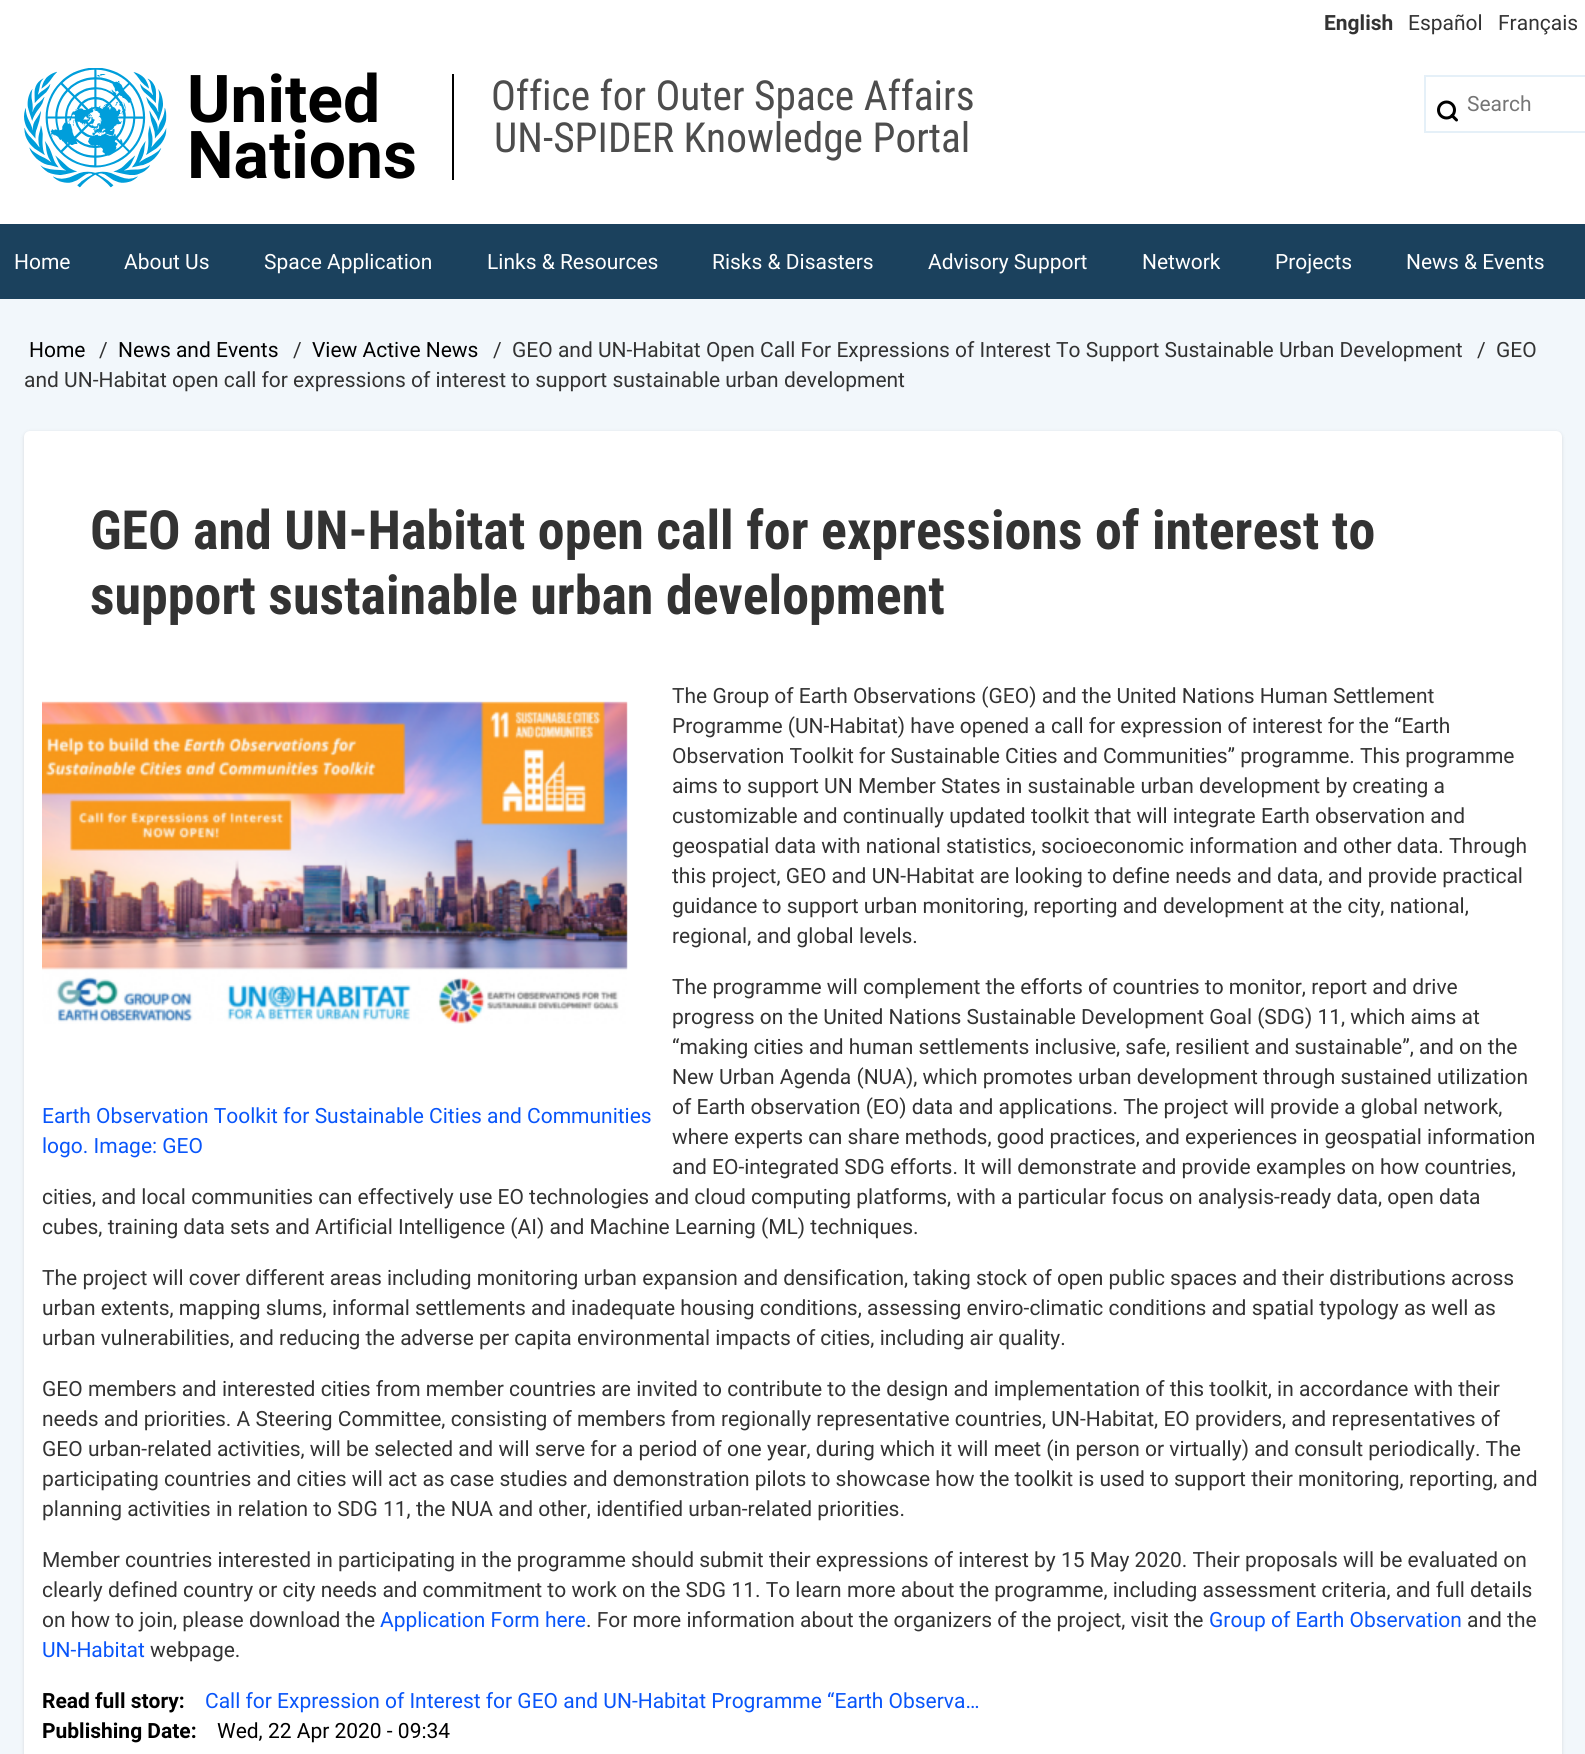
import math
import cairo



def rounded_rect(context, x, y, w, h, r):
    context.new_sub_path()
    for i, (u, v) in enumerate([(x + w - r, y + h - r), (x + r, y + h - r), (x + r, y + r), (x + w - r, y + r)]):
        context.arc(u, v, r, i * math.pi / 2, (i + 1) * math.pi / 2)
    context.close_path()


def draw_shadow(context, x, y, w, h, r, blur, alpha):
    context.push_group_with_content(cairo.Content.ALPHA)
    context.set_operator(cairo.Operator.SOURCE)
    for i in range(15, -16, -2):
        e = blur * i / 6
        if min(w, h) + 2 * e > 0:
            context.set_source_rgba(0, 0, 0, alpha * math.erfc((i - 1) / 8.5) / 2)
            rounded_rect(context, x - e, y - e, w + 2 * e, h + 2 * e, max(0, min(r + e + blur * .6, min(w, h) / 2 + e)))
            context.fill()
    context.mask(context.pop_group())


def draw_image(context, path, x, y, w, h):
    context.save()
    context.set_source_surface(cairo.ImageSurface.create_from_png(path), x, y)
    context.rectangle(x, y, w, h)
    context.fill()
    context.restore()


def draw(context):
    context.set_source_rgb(1, 1, 1)
    context.paint()
    draw_image(context, "images/1.png", 24, 68, 143, 120)
    context.set_source_rgb(0, 0, 0)
    context.rectangle(452, 74, 2, 106)
    context.fill()
    context.arc(1446.5, 110, 8, 0, 2 * math.pi)
    context.set_line_width(3)
    context.stroke()
    context.new_path()
    context.move_to(1456.5, 120)
    context.line_to(1452, 115.5)
    context.set_line_cap(cairo.LineCap.ROUND)
    context.set_line_join(cairo.LineJoin.ROUND)
    context.stroke()
    context.set_source_rgb(229 / 255, 240 / 255, 248 / 255)
    context.rectangle(1424, 75, 161, 2)
    context.fill()
    context.rectangle(1424, 131, 161, 2)
    context.fill()
    context.rectangle(1424, 75, 2, 57)
    context.fill()
    context.set_source_rgb(27 / 255, 65 / 255, 93 / 255)
    context.rectangle(0, 224, 1585, 75)
    context.fill()
    context.set_source_rgb(242 / 255, 247 / 255, 251 / 255)
    context.rectangle(0, 299, 1585, 1455)
    context.fill()
    context.set_source_rgb(0, 0, 0)
    draw_shadow(context, 24, 432, 1538, 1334, 6, 2, 0.12)
    context.set_source_rgb(1, 1, 1)
    rounded_rect(context, 24, 431, 1538, 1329, 6)
    context.fill()
    draw_image(context, "images/2.png", 42, 701, 586, 323)
    context.select_font_face("Roboto", cairo.FontSlant.NORMAL, cairo.FontWeight.BOLD)
    context.set_font_size(21)
    context.set_source_rgb(51 / 255, 51 / 255, 51 / 255)
    context.move_to(1324, 30)
    context.show_text("English")
    context.select_font_face("Roboto")
    context.move_to(1408, 30)
    context.show_text("Español")
    context.move_to(1498, 30)
    context.show_text("Français")
    context.select_font_face("Roboto", cairo.FontSlant.NORMAL, cairo.FontWeight.BOLD)
    context.set_font_size(66)
    context.set_source_rgb(0, 0, 0)
    context.move_to(187, 122)
    context.show_text("United")
    context.move_to(187, 178)
    context.show_text("Nations")
    context.select_font_face("Roboto Condensed")
    context.set_font_size(41.4)
    context.set_source_rgb(77 / 255, 77 / 255, 77 / 255)
    context.move_to(491, 110)
    context.show_text("Office for Outer Space Affairs")
    context.move_to(494, 152)
    context.show_text("UN-SPIDER Knowledge Portal")
    context.select_font_face("Roboto")
    context.set_font_size(21)
    context.set_source_rgb(117 / 255, 117 / 255, 117 / 255)
    context.move_to(1467, 111)
    context.show_text("Search")
    context.set_source_rgb(1, 1, 1)
    context.move_to(14, 269)
    context.show_text("Home")
    context.move_to(124, 269)
    context.show_text("About Us")
    context.move_to(264, 269)
    context.show_text("Space Application")
    context.move_to(487, 269)
    context.show_text("Links & Resources")
    context.move_to(712, 269)
    context.show_text("Risks & Disasters")
    context.move_to(928, 269)
    context.show_text("Advisory Support")
    context.move_to(1142, 269)
    context.show_text("Network")
    context.move_to(1275, 269)
    context.show_text("Projects")
    context.move_to(1406, 269)
    context.show_text("News & Events")
    context.set_source_rgb(0, 0, 0)
    context.move_to(29, 357)
    context.show_text("Home")
    context.set_source_rgb(51 / 255, 51 / 255, 51 / 255)
    context.move_to(99, 357)
    context.show_text("/")
    context.set_source_rgb(0, 0, 0)
    context.move_to(118, 357)
    context.show_text("News and Events")
    context.set_source_rgb(51 / 255, 51 / 255, 51 / 255)
    context.move_to(293, 357)
    context.show_text("/")
    context.set_source_rgb(0, 0, 0)
    context.move_to(312, 357)
    context.show_text("View Active News")
    context.set_source_rgb(51 / 255, 51 / 255, 51 / 255)
    context.move_to(493, 357)
    context.show_text("/")
    context.move_to(512, 357)
    context.show_text("GEO and UN-Habitat Open Call For Expressions of Interest To Support Sustainable Urban Development")
    context.move_to(1477, 357)
    context.show_text("/")
    context.move_to(1496, 357)
    context.show_text("GEO")
    context.move_to(24, 387)
    context.show_text("and UN-Habitat open call for expressions of interest to support sustainable urban development")
    context.select_font_face("Roboto Condensed", cairo.FontSlant.NORMAL, cairo.FontWeight.BOLD)
    context.set_font_size(54)
    context.move_to(90, 549)
    context.show_text("GEO and UN-Habitat open call for expressions of interest to")
    context.move_to(90, 614)
    context.show_text("support sustainable urban development")
    context.select_font_face("Roboto")
    context.set_font_size(21)
    context.move_to(672, 703)
    context.show_text("The Group of Earth Observations (GEO) and the United Nations Human Settlement")
    context.move_to(672, 733)
    context.show_text("Programme (UN-Habitat) have opened a call for expression of interest for the “Earth")
    context.move_to(672, 763)
    context.show_text("Observation Toolkit for Sustainable Cities and Communities” programme. This programme")
    context.move_to(672, 793)
    context.show_text("aims to support UN Member States in sustainable urban development by creating a")
    context.move_to(672, 823)
    context.show_text("customizable and continually updated toolkit that will integrate Earth observation and")
    context.move_to(672, 853)
    context.show_text("geospatial data with national statistics, socioeconomic information and other data. Through")
    context.move_to(672, 883)
    context.show_text("this project, GEO and UN-Habitat are looking to define needs and data, and provide practical")
    context.move_to(672, 913)
    context.show_text("guidance to support urban monitoring, reporting and development at the city, national,")
    context.move_to(672, 943)
    context.show_text("regional, and global levels.")
    context.move_to(672, 994)
    context.show_text("The programme will complement the efforts of countries to monitor, report and drive")
    context.move_to(672, 1024)
    context.show_text("progress on the United Nations Sustainable Development Goal (SDG) 11, which aims at")
    context.move_to(672, 1054)
    context.show_text("“making cities and human settlements inclusive, safe, resilient and sustainable”, and on the")
    context.move_to(672, 1084)
    context.show_text("New Urban Agenda (NUA), which promotes urban development through sustained utilization")
    context.move_to(672, 1114)
    context.show_text("of Earth observation (EO) data and applications. The project will provide a global network,")
    context.move_to(672, 1144)
    context.show_text("where experts can share methods, good practices, and experiences in geospatial information")
    context.move_to(672, 1174)
    context.show_text("and EO-integrated SDG efforts. It will demonstrate and provide examples on how countries,")
    context.move_to(42, 1204)
    context.show_text("cities, and local communities can effectively use EO technologies and cloud computing platforms, with a particular focus on analysis-ready data, open data")
    context.move_to(42, 1234)
    context.show_text("cubes, training data sets and Artificial Intelligence (AI) and Machine Learning (ML) techniques.")
    context.move_to(42, 1285)
    context.show_text("The project will cover different areas including monitoring urban expansion and densification, taking stock of open public spaces and their distributions across")
    context.move_to(42, 1315)
    context.show_text("urban extents, mapping slums, informal settlements and inadequate housing conditions, assessing enviro-climatic conditions and spatial typology as well as")
    context.move_to(42, 1345)
    context.show_text("urban vulnerabilities, and reducing the adverse per capita environmental impacts of cities, including air quality.")
    context.move_to(42, 1396)
    context.show_text("GEO members and interested cities from member countries are invited to contribute to the design and implementation of this toolkit, in accordance with their")
    context.move_to(42, 1426)
    context.show_text("needs and priorities. A Steering Committee, consisting of members from regionally representative countries, UN-Habitat, EO providers, and representatives of")
    context.move_to(42, 1456)
    context.show_text("GEO urban-related activities, will be selected and will serve for a period of one year, during which it will meet (in person or virtually) and consult periodically. The")
    context.move_to(42, 1486)
    context.show_text("participating countries and cities will act as case studies and demonstration pilots to showcase how the toolkit is used to support their monitoring, reporting, and")
    context.move_to(42, 1516)
    context.show_text("planning activities in relation to SDG 11, the NUA and other, identified urban-related priorities.")
    context.move_to(42, 1567)
    context.show_text("Member countries interested in participating in the programme should submit their expressions of interest by 15 May 2020. Their proposals will be evaluated on")
    context.move_to(42, 1597)
    context.show_text("clearly defined country or city needs and commitment to work on the SDG 11. To learn more about the programme, including assessment criteria, and full details")
    context.move_to(42, 1627)
    context.show_text("on how to join, please download the")
    context.set_source_rgb(8 / 255, 85 / 255, 250 / 255)
    context.move_to(380, 1627)
    context.show_text("Application Form here")
    context.set_source_rgb(51 / 255, 51 / 255, 51 / 255)
    context.move_to(586, 1627)
    context.show_text(". For more information about the organizers of the project, visit the")
    context.set_source_rgb(8 / 255, 85 / 255, 250 / 255)
    context.move_to(1209, 1627)
    context.show_text("Group of Earth Observation")
    context.set_source_rgb(51 / 255, 51 / 255, 51 / 255)
    context.move_to(1467, 1627)
    context.show_text("and the")
    context.set_source_rgb(8 / 255, 85 / 255, 250 / 255)
    context.move_to(42, 1657)
    context.show_text("UN-Habitat")
    context.set_source_rgb(51 / 255, 51 / 255, 51 / 255)
    context.move_to(150, 1657)
    context.show_text("webpage.")
    context.set_source_rgb(8 / 255, 85 / 255, 250 / 255)
    context.move_to(42, 1123)
    context.show_text("Earth Observation Toolkit for Sustainable Cities and Communities")
    context.move_to(42, 1153)
    context.show_text("logo. Image: GEO")
    context.select_font_face("Roboto", cairo.FontSlant.NORMAL, cairo.FontWeight.BOLD)
    context.set_source_rgb(0, 0, 0)
    context.move_to(42, 1708)
    context.show_text("Read full story:")
    context.select_font_face("Roboto")
    context.set_source_rgb(8 / 255, 85 / 255, 250 / 255)
    context.move_to(205, 1708)
    context.show_text("Call for Expression of Interest for GEO and UN-Habitat Programme “Earth Observa…")
    context.select_font_face("Roboto", cairo.FontSlant.NORMAL, cairo.FontWeight.BOLD)
    context.set_source_rgb(0, 0, 0)
    context.move_to(42, 1738)
    context.show_text("Publishing Date:")
    context.select_font_face("Roboto")
    context.move_to(217, 1738)
    context.show_text("Wed, 22 Apr 2020 - 09:34")


surface = cairo.ImageSurface(cairo.Format.RGB24, 1585, 1754)
context = cairo.Context(surface)
options = cairo.FontOptions()
options.set_hint_metrics(cairo.HintMetrics.OFF)
options.set_hint_style(cairo.HintStyle.NONE)
context.set_font_options(options)
context.set_miter_limit(4)
draw(context)
surface.write_to_png("out.png")
